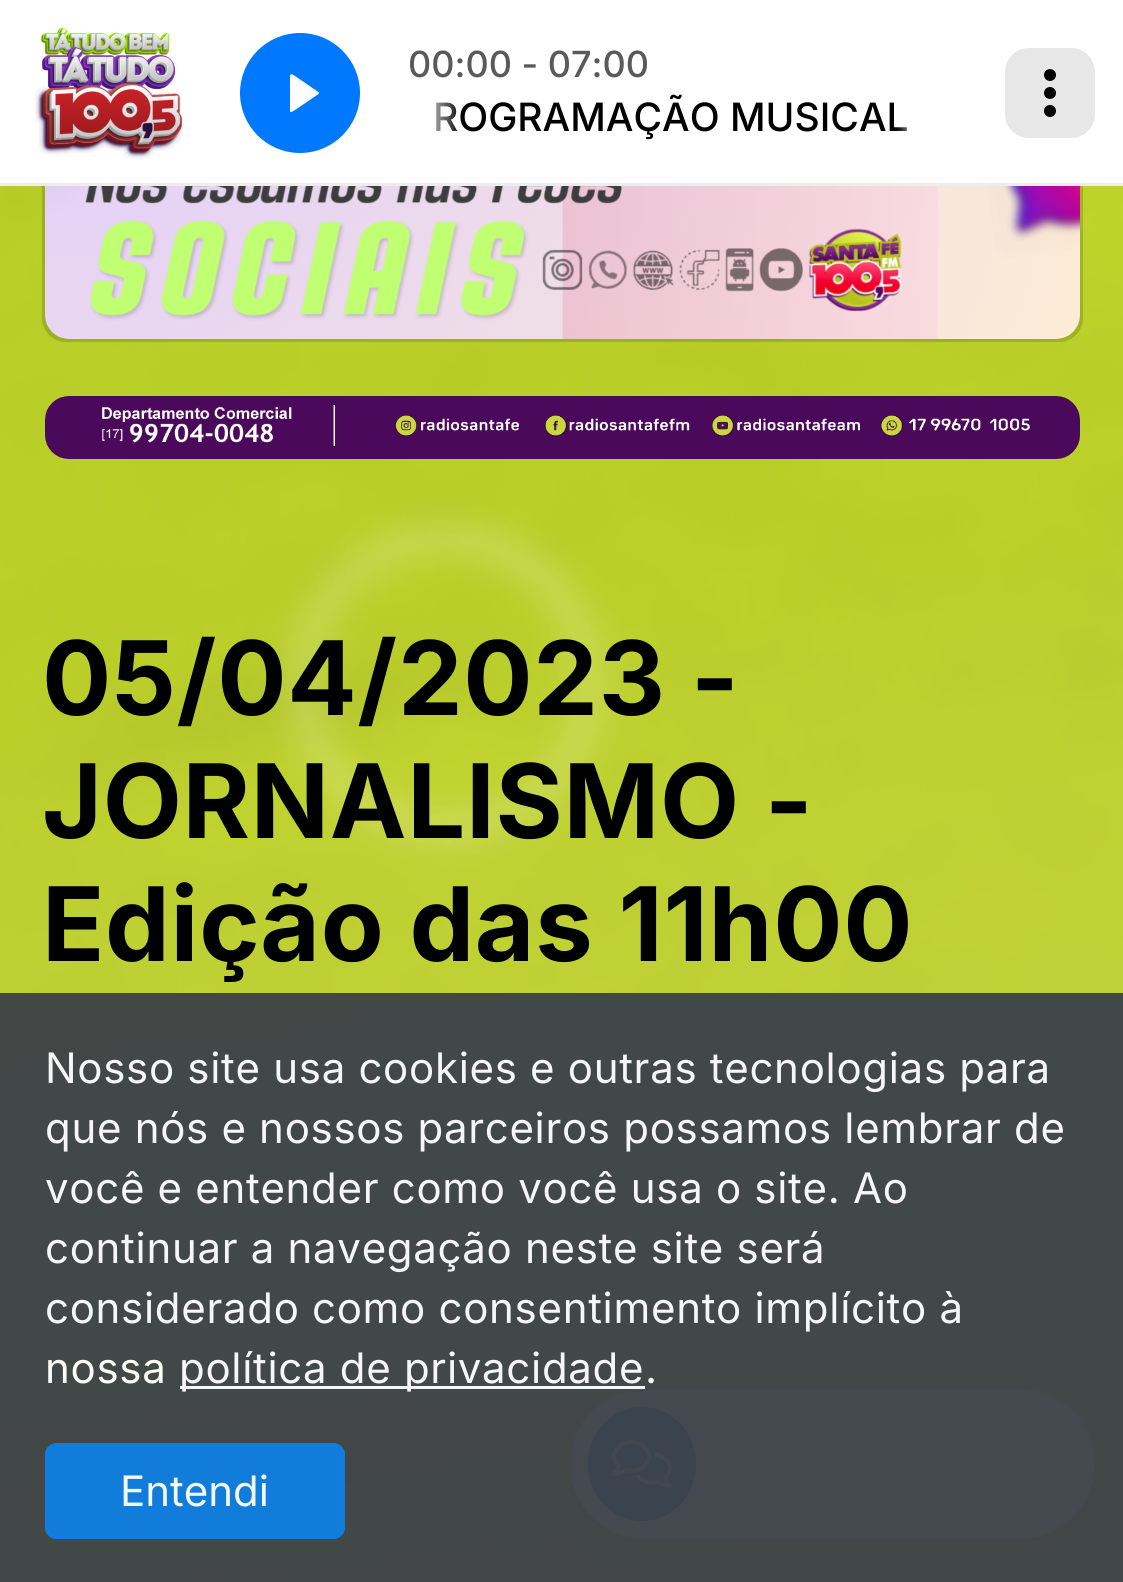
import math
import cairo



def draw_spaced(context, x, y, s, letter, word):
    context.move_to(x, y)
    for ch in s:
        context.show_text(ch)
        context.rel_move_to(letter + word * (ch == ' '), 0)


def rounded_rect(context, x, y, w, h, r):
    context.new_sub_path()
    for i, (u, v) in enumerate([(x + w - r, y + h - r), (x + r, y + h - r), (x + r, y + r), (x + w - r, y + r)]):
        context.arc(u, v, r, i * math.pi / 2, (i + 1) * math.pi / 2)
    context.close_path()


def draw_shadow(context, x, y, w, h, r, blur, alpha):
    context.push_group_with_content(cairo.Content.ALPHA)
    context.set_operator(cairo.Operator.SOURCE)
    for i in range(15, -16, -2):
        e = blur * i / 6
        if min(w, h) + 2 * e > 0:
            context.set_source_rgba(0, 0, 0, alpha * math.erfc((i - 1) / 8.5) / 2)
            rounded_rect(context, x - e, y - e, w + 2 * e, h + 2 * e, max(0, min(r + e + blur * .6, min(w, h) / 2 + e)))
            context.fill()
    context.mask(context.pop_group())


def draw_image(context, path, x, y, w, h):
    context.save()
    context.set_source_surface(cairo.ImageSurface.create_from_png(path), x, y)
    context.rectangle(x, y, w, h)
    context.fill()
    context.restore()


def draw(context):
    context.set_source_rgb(1, 1, 1)
    context.paint()
    draw_image(context, "images/4.png", 0, 186, 1123, 1396)
    context.set_source_rgba(0, 0, 0, 0.15)
    rounded_rect(context, 42, 132, 1041, 210, 24)
    context.fill()
    context.set_source_rgb(1, 1, 1)
    context.rectangle(42, 132, 1041, 51)
    context.fill()
    context.set_source_rgb(237 / 255, 237 / 255, 237 / 255)
    context.rectangle(0, 183, 1123, 3)
    context.fill()
    draw_image(context, "images/1.png", 35, 27, 149, 132)
    context.set_source_rgb(0, 121 / 255, 1)
    context.arc(300, 93, 60, 0, 2 * math.pi)
    context.fill()
    context.set_source_rgb(1, 1, 1)
    context.new_path()
    context.move_to(318.5, 94)
    context.line_to(296.5, 109)
    context.curve_to(289, 114, 290, 113, 290, 105)
    context.line_to(290, 75.5)
    context.line_to(290.5, 74.5)
    context.curve_to(292, 73.5, 295.5, 76.5, 296.5, 77)
    context.line_to(319, 92.5)
    context.curve_to(319, 93, 319, 93.5, 318.5, 94)
    context.close_path()
    context.fill()
    context.set_source_rgb(231 / 255, 231 / 255, 231 / 255)
    rounded_rect(context, 1005, 48, 90, 90, 24)
    context.fill()
    context.set_source_rgb(0, 0, 0)
    context.arc(1050, 111, 6, 0, 2 * math.pi)
    context.fill()
    context.arc(1050, 93, 6, 0, 2 * math.pi)
    context.fill()
    context.arc(1050, 75, 6, 0, 2 * math.pi)
    context.fill()
    draw_image(context, "images/2.png", 45, 186, 1035, 153)
    draw_image(context, "images/3.png", 45, 396, 1035, 63)
    context.set_source_rgb(0, 0, 0)
    draw_shadow(context, 570, 1401, 525, 150, 75, 12, 0.1)
    context.set_source_rgb(239 / 255, 239 / 255, 239 / 255)
    rounded_rect(context, 570, 1389, 525, 150, 75)
    context.fill()
    context.set_source_rgb(35 / 255, 119 / 255, 243 / 255)
    context.new_path()
    context.move_to(642, 1407)
    context.curve_to(672, 1407, 696, 1432.5, 696, 1464)
    context.curve_to(696, 1495.5, 672, 1521, 642, 1521)
    context.curve_to(612, 1521, 588, 1495.5, 588, 1464)
    context.curve_to(588, 1432.5, 612, 1407, 642, 1407)
    context.close_path()
    context.fill()
    draw_image(context, "images/5.png", 612, 1440, 60, 48)
    context.set_source_rgba(60 / 255, 65 / 255, 72 / 255, 0.95)
    context.rectangle(0, 993, 1123, 589)
    context.fill()
    context.set_source_rgb(246 / 255, 246 / 255, 246 / 255)
    context.rectangle(180, 1386, 465, 3)
    context.fill()
    context.set_source_rgb(17 / 255, 124 / 255, 218 / 255)
    rounded_rect(context, 45, 1443, 300, 96, 12)
    context.fill()
    rounded_rect(context, 46.5, 1444.5, 297, 93, 10.5)
    context.set_source_rgba(14 / 255, 127 / 255, 226 / 255, 0.95)
    context.set_line_width(3)
    context.stroke()
    context.select_font_face("Inter Medium")
    context.set_font_size(36)
    context.set_source_rgb(90 / 255, 90 / 255, 90 / 255)
    context.move_to(408, 77)
    context.show_text("00:00 - 07:00")
    context.set_font_size(39)
    context.set_source_rgb(0, 0, 0)
    context.move_to(433, 131)
    context.show_text("ROGRAMAÇÃO MUSICAL")
    gradient = cairo.LinearGradient(408, 117, 462, 117)
    gradient.add_color_stop_rgba(0.2, 1, 1, 1, 1)
    gradient.add_color_stop_rgba(1, 1, 1, 1, 0)
    context.set_source(gradient)
    context.rectangle(436, 102, 25, 29)
    context.fill()
    gradient = cairo.LinearGradient(954, 117, 900, 117)
    gradient.add_color_stop_rgba(0.2, 1, 1, 1, 1)
    gradient.add_color_stop_rgba(1, 1, 1, 1, 0)
    context.set_source(gradient)
    context.rectangle(901, 127, 6, 4)
    context.fill()
    gradient = cairo.LinearGradient(954, 91, 894, 92)
    gradient.add_color_stop_rgba(0.2, 1, 1, 1, 1)
    gradient.add_color_stop_rgba(1, 1, 1, 1, 0)
    context.set_source(gradient)
    context.rectangle(895, 127, 12, 4)
    context.fill()
    context.select_font_face("Inter", cairo.FontSlant.NORMAL, cairo.FontWeight.BOLD)
    context.set_font_size(102.75)
    context.set_source_rgb(0, 0, 0)
    draw_spaced(context, 42, 715, "05/04/2023 -", 0.7, 0)
    draw_spaced(context, 42, 838, "JORNALISMO -", 0.7, 0)
    draw_spaced(context, 42, 961, "Edição das 11h00", 0.7, 0)
    context.select_font_face("Inter")
    context.set_font_size(42)
    context.set_source_rgb(246 / 255, 246 / 255, 246 / 255)
    draw_spaced(context, 45, 1083, "Nosso site usa cookies e outras tecnologias para", 0.7, 0)
    draw_spaced(context, 45, 1143, "que nós e nossos parceiros possamos lembrar de", 0.7, 0)
    draw_spaced(context, 45, 1203, "você e entender como você usa o site. Ao", 0.7, 0)
    draw_spaced(context, 45, 1263, "continuar a navegação neste site será", 0.7, 0)
    draw_spaced(context, 45, 1323, "considerado como consentimento implícito à", 0.7, 0)
    context.set_source_rgb(252 / 255, 253 / 255, 245 / 255)
    draw_spaced(context, 45, 1383, "nossa", 0.7, 0)
    context.set_source_rgb(246 / 255, 246 / 255, 246 / 255)
    draw_spaced(context, 179, 1383, "política de privacidade", 0.7, 0)
    context.set_source_rgb(252 / 255, 253 / 255, 245 / 255)
    draw_spaced(context, 645, 1383, ".", 0.7, 0)
    context.set_source_rgb(243 / 255, 248 / 255, 253 / 255)
    context.move_to(120, 1506)
    context.show_text("Entendi")


surface = cairo.ImageSurface(cairo.Format.RGB24, 1123, 1582)
context = cairo.Context(surface)
options = cairo.FontOptions()
options.set_hint_metrics(cairo.HintMetrics.OFF)
options.set_hint_style(cairo.HintStyle.NONE)
context.set_font_options(options)
context.set_miter_limit(4)
draw(context)
surface.write_to_png("out.png")
